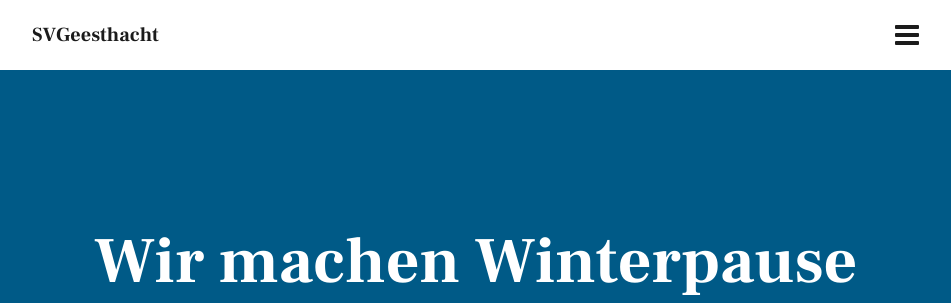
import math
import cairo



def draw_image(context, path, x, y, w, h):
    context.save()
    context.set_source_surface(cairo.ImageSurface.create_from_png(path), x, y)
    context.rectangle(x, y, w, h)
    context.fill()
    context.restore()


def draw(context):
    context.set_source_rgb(0, 90 / 255, 135 / 255)
    context.paint()
    context.set_source_rgb(1, 1, 1)
    context.rectangle(0, 0, 951, 70)
    context.fill()
    draw_image(context, "images/1.png", 895, 25, 24, 20)
    context.select_font_face("Frank Ruhl Libre", cairo.FontSlant.NORMAL, cairo.FontWeight.BOLD)
    context.set_font_size(20)
    context.set_source_rgb(27 / 255, 27 / 255, 27 / 255)
    context.move_to(32, 41)
    context.show_text("SVGeesthacht")
    context.set_font_size(65)
    context.set_source_rgb(1, 1, 1)
    context.move_to(94, 282)
    context.show_text("Wir machen Winterpause")


surface = cairo.ImageSurface(cairo.Format.RGB24, 951, 303)
context = cairo.Context(surface)
options = cairo.FontOptions()
options.set_hint_metrics(cairo.HintMetrics.OFF)
options.set_hint_style(cairo.HintStyle.NONE)
context.set_font_options(options)
context.set_miter_limit(4)
draw(context)
surface.write_to_png("out.png")
